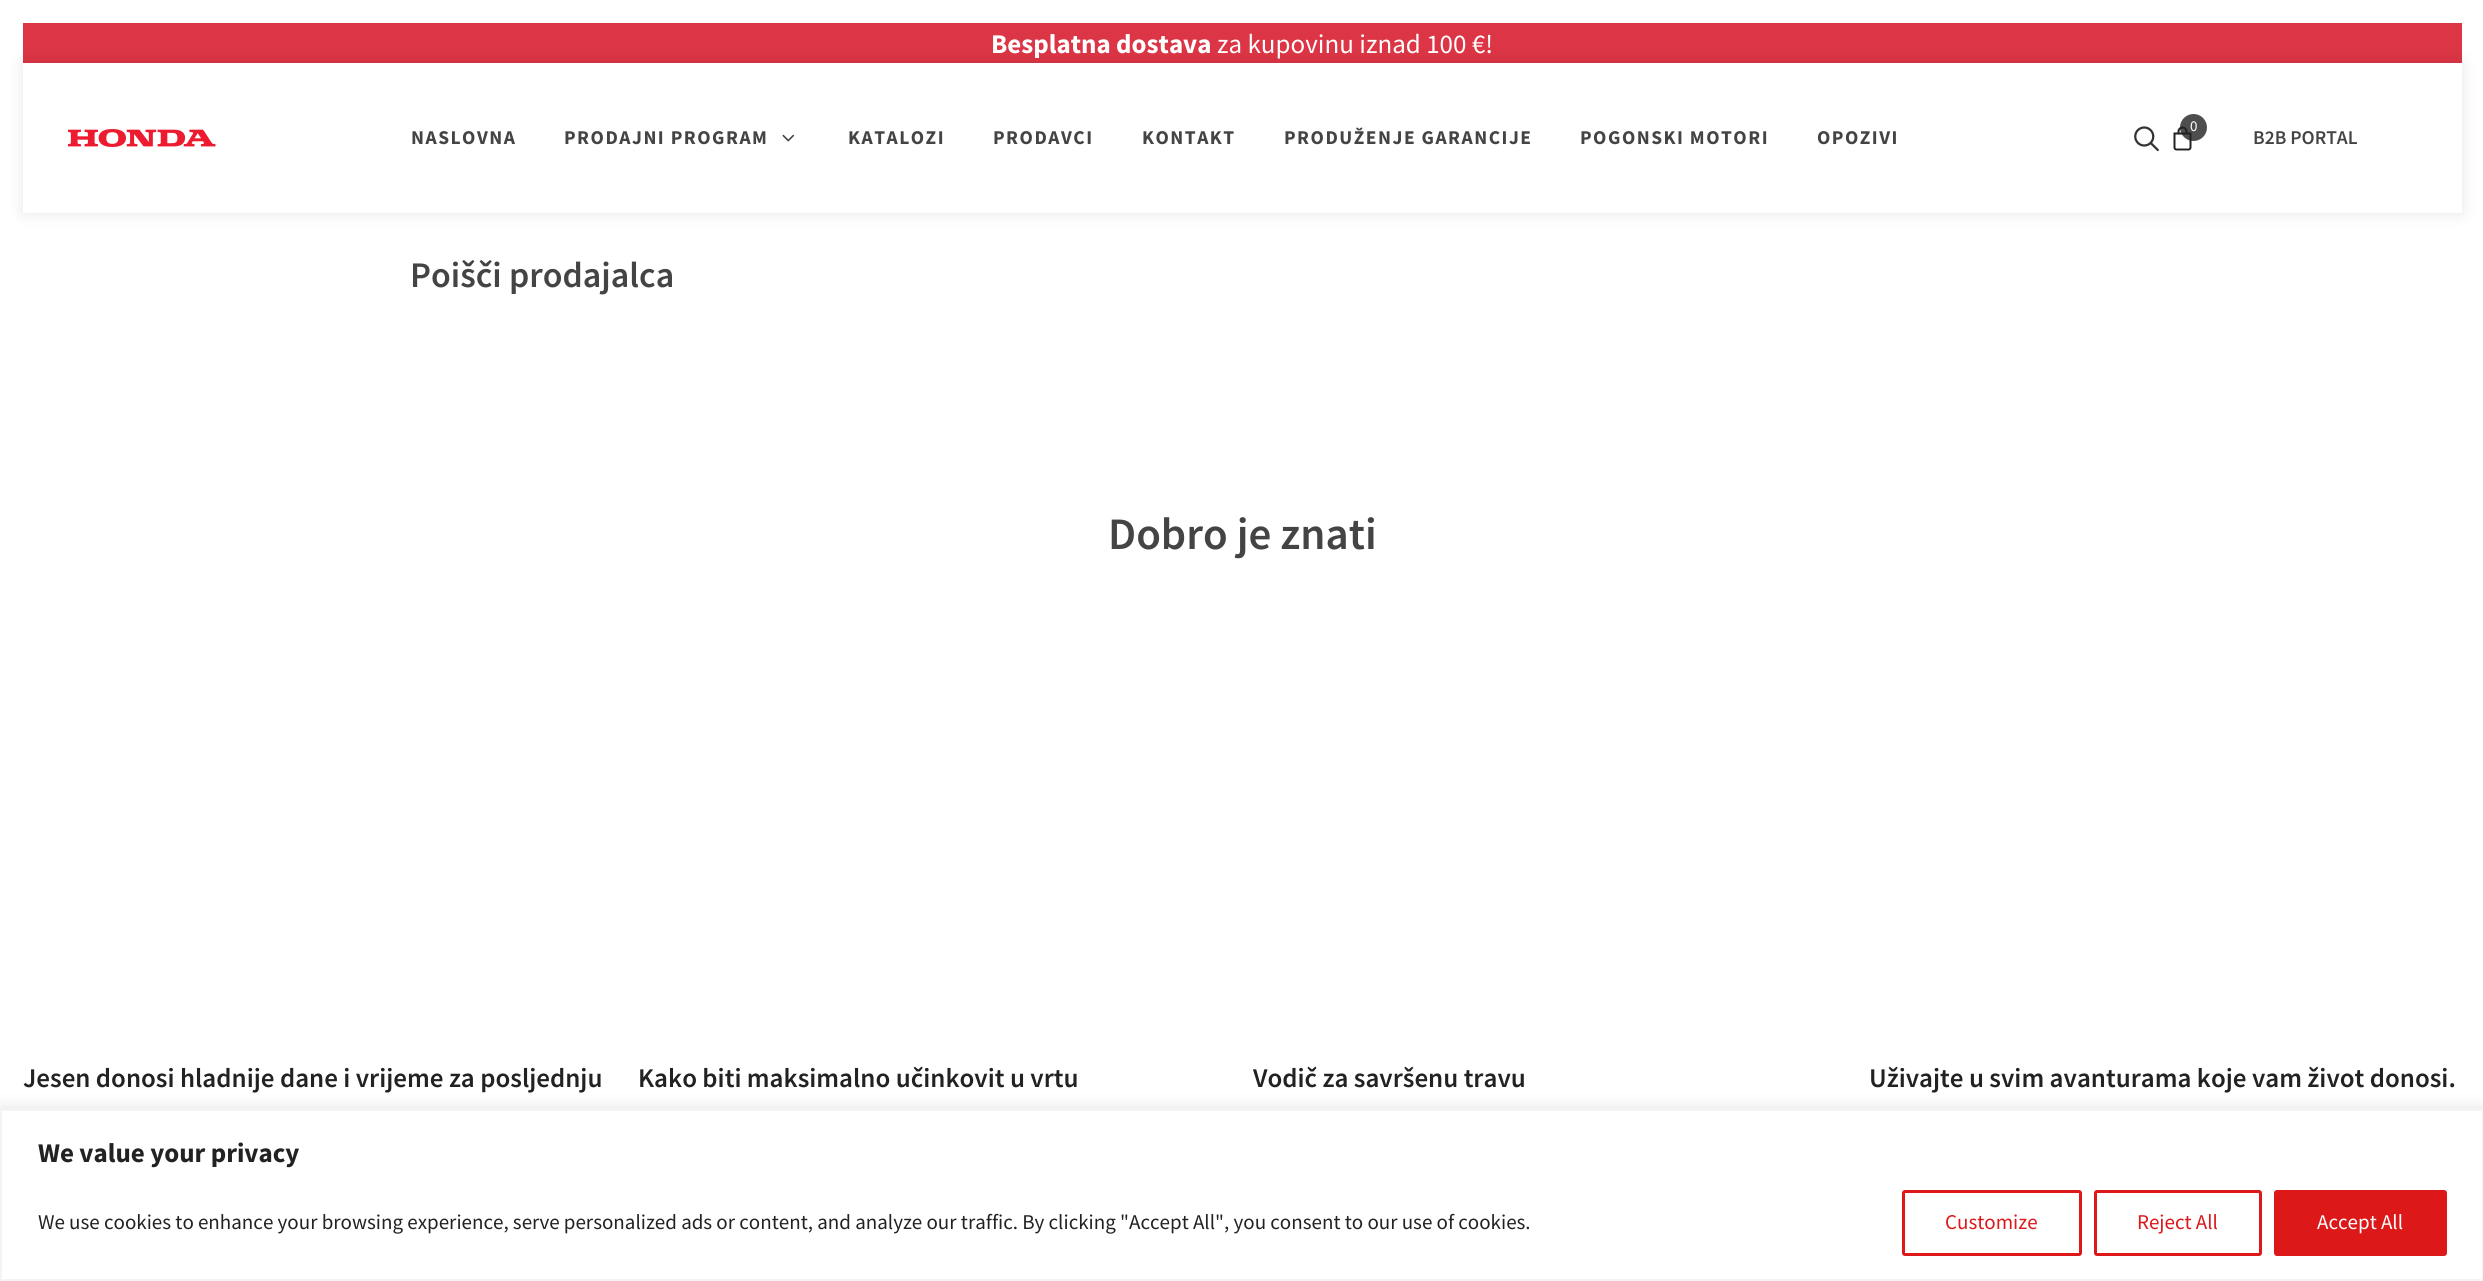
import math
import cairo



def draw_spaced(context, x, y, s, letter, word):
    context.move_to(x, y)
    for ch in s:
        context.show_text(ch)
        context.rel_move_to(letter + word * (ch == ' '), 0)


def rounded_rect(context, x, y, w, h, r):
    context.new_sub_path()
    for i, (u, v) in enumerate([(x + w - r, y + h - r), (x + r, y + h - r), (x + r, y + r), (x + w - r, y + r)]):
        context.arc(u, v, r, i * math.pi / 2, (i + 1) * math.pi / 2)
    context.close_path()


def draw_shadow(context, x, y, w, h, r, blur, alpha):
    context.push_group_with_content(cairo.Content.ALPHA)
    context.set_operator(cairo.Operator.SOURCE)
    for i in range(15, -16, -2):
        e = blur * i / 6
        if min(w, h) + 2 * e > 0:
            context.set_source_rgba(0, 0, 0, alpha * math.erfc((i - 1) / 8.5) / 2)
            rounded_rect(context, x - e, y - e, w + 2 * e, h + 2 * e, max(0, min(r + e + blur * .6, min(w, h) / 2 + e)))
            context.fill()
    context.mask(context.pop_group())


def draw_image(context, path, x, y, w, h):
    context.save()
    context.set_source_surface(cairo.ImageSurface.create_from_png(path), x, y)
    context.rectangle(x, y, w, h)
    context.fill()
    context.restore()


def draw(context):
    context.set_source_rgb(1, 1, 1)
    context.paint()
    context.set_source_rgb(220 / 255, 53 / 255, 69 / 255)
    context.rectangle(23, 23, 2439, 40)
    context.fill()
    context.set_source_rgb(0, 0, 0)
    draw_shadow(context, 23, 63, 2439, 150, 0, 7.5, 0.1)
    context.set_source_rgb(1, 1, 1)
    context.rectangle(23, 63, 2439, 150)
    context.fill()
    draw_image(context, "images/1.png", 68, 129, 148, 18)
    draw_image(context, "images/2.png", 782, 134, 13, 8)
    draw_image(context, "images/3.png", 2134, 126, 25, 26)
    draw_image(context, "images/4.png", 2173, 126, 19, 25)
    context.set_source_rgba(34 / 255, 34 / 255, 34 / 255, 0.8)
    context.arc(2193.5, 127.5, 13.5, 0, 2 * math.pi)
    context.fill()
    context.set_source_rgb(172 / 255, 171 / 255, 171 / 255)
    draw_shadow(context, 0, 1107, 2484, 173, 0, 7.5, 0.3)
    context.set_source_rgb(1, 1, 1)
    context.rectangle(1, 1110, 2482, 170)
    context.fill_preserve()
    context.set_source_rgb(244 / 255, 244 / 255, 244 / 255)
    context.stroke()
    rounded_rect(context, 1903.5, 1191.5, 177, 63, 1.5)
    context.set_source_rgb(220 / 255, 24 / 255, 24 / 255)
    context.set_line_width(3)
    context.stroke()
    rounded_rect(context, 2095.5, 1191.5, 165, 63, 1.5)
    context.stroke()
    rounded_rect(context, 2275.5, 1191.5, 170, 63, 1.5)
    context.fill_preserve()
    context.stroke()
    context.select_font_face("Source Sans Pro", cairo.FontSlant.NORMAL, cairo.FontWeight.BOLD)
    context.set_font_size(27)
    context.set_source_rgb(1, 1, 1)
    context.move_to(991, 53)
    context.show_text("Besplatna dostava")
    context.select_font_face("Source Sans Pro")
    context.move_to(1217, 53)
    context.show_text("za kupovinu iznad 100 €!")
    context.select_font_face("Source Sans Pro", cairo.FontSlant.NORMAL, cairo.FontWeight.BOLD)
    context.set_font_size(19.5)
    context.set_source_rgb(68 / 255, 68 / 255, 68 / 255)
    draw_spaced(context, 411, 144, "NASLOVNA", 1.5, 0)
    draw_spaced(context, 564, 144, "PRODAJNI PROGRAM", 1.5, 0)
    draw_spaced(context, 848, 144, "KATALOZI", 1.5, 0)
    draw_spaced(context, 993, 144, "PRODAVCI", 1.5, 0)
    draw_spaced(context, 1142, 144, "KONTAKT", 1.5, 0)
    draw_spaced(context, 1284, 144, "PRODUŽENJE GARANCIJE", 1.5, 0)
    draw_spaced(context, 1580, 144, "POGONSKI MOTORI", 1.5, 0)
    draw_spaced(context, 1817, 144, "OPOZIVI", 1.5, 0)
    context.select_font_face("Source Sans Pro")
    context.set_font_size(15)
    context.set_source_rgb(1, 1, 1)
    context.move_to(2190, 131)
    context.show_text("0")
    context.select_font_face("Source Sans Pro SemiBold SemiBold")
    context.set_font_size(19.5)
    context.set_source_rgb(68 / 255, 68 / 255, 68 / 255)
    context.move_to(2253, 144)
    context.show_text("B2B PORTAL")
    context.set_font_size(36)
    context.move_to(410, 287)
    context.show_text("Poišči prodajalca")
    context.set_font_size(45)
    context.move_to(1108, 549)
    context.show_text("Dobro je znati")
    context.set_font_size(27)
    context.set_source_rgb(34 / 255, 34 / 255, 34 / 255)
    context.move_to(23, 1087)
    context.show_text("Jesen donosi hladnije dane i vrijeme za posljednju")
    context.move_to(638, 1087)
    context.show_text("Kako biti maksimalno učinkovit u vrtu")
    context.move_to(1253, 1087)
    context.show_text("Vodič za savršenu travu")
    context.move_to(1869, 1087)
    context.show_text("Uživajte u svim avanturama koje vam život donosi.")
    context.select_font_face("Source Sans Pro", cairo.FontSlant.NORMAL, cairo.FontWeight.BOLD)
    context.move_to(38, 1162)
    context.show_text("We value your privacy")
    context.select_font_face("Source Sans Pro")
    context.set_font_size(21)
    context.move_to(38, 1229)
    context.show_text("We use cookies to enhance your browsing experience, serve personalized ads or content, and analyze our traffic. By clicking \"Accept All\", you consent to our use of cookies.")
    context.set_source_rgb(220 / 255, 24 / 255, 24 / 255)
    context.move_to(1945, 1229)
    context.show_text("Customize")
    context.move_to(2137, 1229)
    context.show_text("Reject All")
    context.set_source_rgb(1, 1, 1)
    context.move_to(2317, 1229)
    context.show_text("Accept All")


surface = cairo.ImageSurface(cairo.Format.RGB24, 2483, 1281)
context = cairo.Context(surface)
options = cairo.FontOptions()
options.set_hint_metrics(cairo.HintMetrics.OFF)
options.set_hint_style(cairo.HintStyle.NONE)
context.set_font_options(options)
context.set_miter_limit(4)
draw(context)
surface.write_to_png("out.png")
